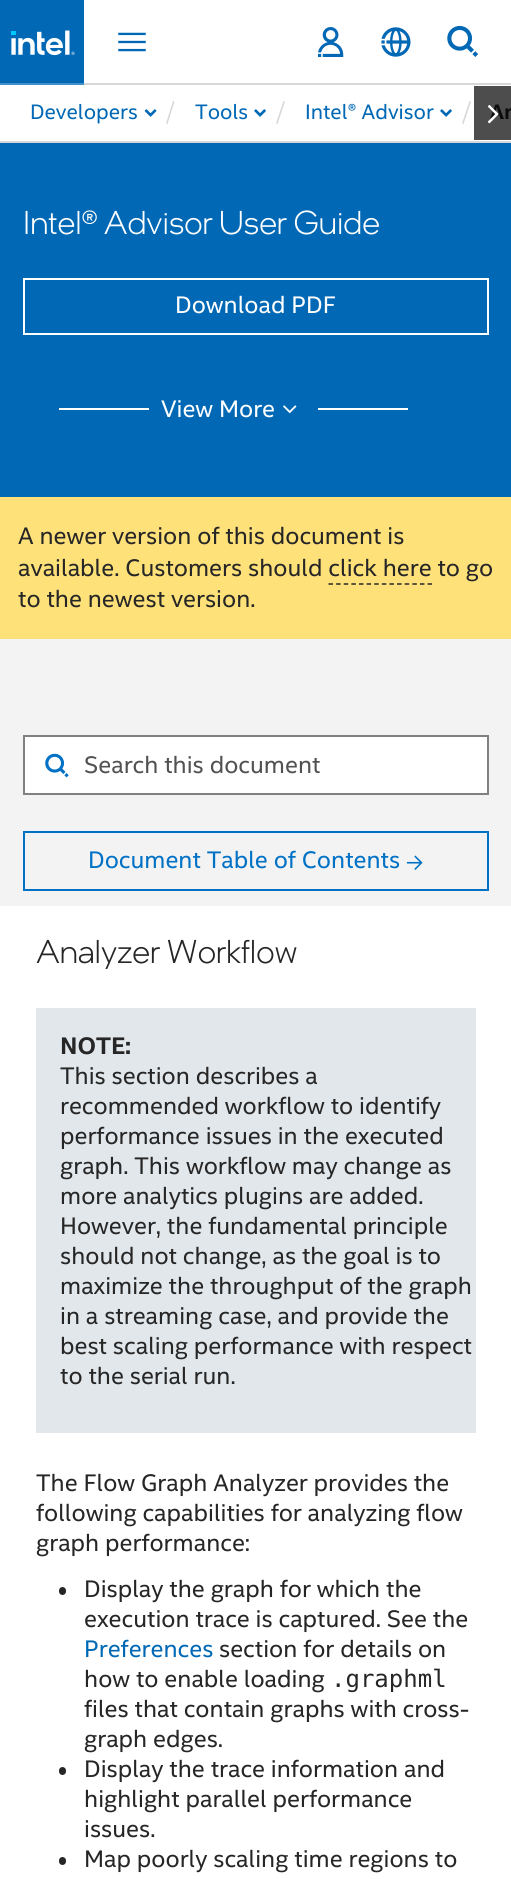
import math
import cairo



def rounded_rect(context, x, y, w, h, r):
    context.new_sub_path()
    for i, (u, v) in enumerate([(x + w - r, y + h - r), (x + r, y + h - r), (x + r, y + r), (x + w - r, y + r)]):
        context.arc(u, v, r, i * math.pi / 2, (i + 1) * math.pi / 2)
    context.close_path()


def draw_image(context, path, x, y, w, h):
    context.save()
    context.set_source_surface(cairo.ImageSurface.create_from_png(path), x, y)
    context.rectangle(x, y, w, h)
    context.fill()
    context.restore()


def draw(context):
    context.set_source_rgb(1, 1, 1)
    context.paint()
    context.set_source_rgb(77 / 255, 77 / 255, 77 / 255)
    context.rectangle(474, 86, 37, 54)
    context.fill()
    context.set_source_rgb(215 / 255, 215 / 255, 215 / 255)
    context.rectangle(84, 83, 427, 2)
    context.fill()
    context.set_source_rgb(0, 104 / 255, 181 / 255)
    context.rectangle(0, 0, 84, 83)
    context.fill()
    draw_image(context, "images/1.png", 11, 30, 64, 26)
    context.set_source_rgb(66 / 255, 144 / 255, 203 / 255)
    context.rectangle(0, 83, 84, 2)
    context.fill()
    draw_image(context, "images/2.png", 118, 32, 28, 20)
    draw_image(context, "images/3.png", 318, 27, 26, 30)
    draw_image(context, "images/4.png", 381, 27, 30, 30)
    draw_image(context, "images/5.png", 447, 25, 32, 32)
    context.set_source_rgb(215 / 255, 215 / 255, 215 / 255)
    context.rectangle(0, 141, 511, 2)
    context.fill()
    draw_image(context, "images/6.png", 144, 109, 13, 8)
    context.new_path()
    context.move_to(173, 101)
    context.line_to(174.5, 101.5)
    context.line_to(167.5, 124)
    context.line_to(166, 123.5)
    context.close_path()
    context.fill()
    draw_image(context, "images/7.png", 254, 109, 12, 8)
    context.new_path()
    context.move_to(283.5, 101)
    context.line_to(285, 101.5)
    context.line_to(277.5, 124)
    context.line_to(276, 123.5)
    context.close_path()
    context.fill()
    draw_image(context, "images/7.png", 440, 109, 12, 8)
    context.new_path()
    context.move_to(469.5, 101)
    context.line_to(471, 101.5)
    context.line_to(463.5, 124)
    context.line_to(462, 123.5)
    context.close_path()
    context.fill()
    context.set_source_rgb(0, 104 / 255, 181 / 255)
    context.rectangle(0, 143, 511, 354)
    context.fill()
    context.rectangle(24, 279, 464, 55)
    context.set_source_rgb(1, 1, 1)
    context.stroke()
    context.rectangle(59, 408, 90, 2)
    context.fill()
    draw_image(context, "images/9.png", 283, 405, 14, 9)
    context.rectangle(318, 408, 90, 2)
    context.fill()
    context.set_source_rgb(1, 225 / 255, 122 / 255)
    context.rectangle(0, 497, 511, 142)
    context.fill()
    context.new_path()
    context.move_to(328.5, 584)
    context.line_to(432, 584)
    context.set_source_rgb(38 / 255, 38 / 255, 38 / 255)
    context.set_line_width(1.5)
    context.set_dash([4.5, 3.12])
    context.stroke()
    context.set_source_rgb(243 / 255, 243 / 255, 243 / 255)
    context.rectangle(0, 639, 511, 267)
    context.fill()
    context.set_source_rgb(1, 1, 1)
    context.rectangle(24, 736, 464, 58)
    context.fill_preserve()
    context.set_source_rgb(128 / 255, 128 / 255, 128 / 255)
    context.set_line_width(2)
    context.set_dash([])
    context.stroke()
    draw_image(context, "images/10.png", 45, 753, 24, 25)
    context.rectangle(24, 832, 464, 58)
    context.set_source_rgb(0, 113 / 255, 197 / 255)
    context.stroke()
    draw_image(context, "images/11.png", 406, 855, 17, 15)
    context.set_source_rgb(226 / 255, 231 / 255, 235 / 255)
    context.rectangle(36, 1008, 440, 425)
    context.fill()
    context.set_source_rgb(38 / 255, 38 / 255, 38 / 255)
    rounded_rect(context, 59, 1587, 7, 8, 3.5)
    context.fill()
    rounded_rect(context, 59, 1767, 7, 8, 3.5)
    context.fill()
    rounded_rect(context, 59, 1857, 7, 8, 3.5)
    context.fill()
    context.select_font_face("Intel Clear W")
    context.set_font_size(21)
    context.set_source_rgb(0, 104 / 255, 181 / 255)
    context.move_to(30, 119)
    context.show_text("Developers")
    context.move_to(195, 119)
    context.show_text("Tools")
    context.move_to(305, 119)
    context.show_text("Intel® Advisor")
    context.select_font_face("Intel Clear W", cairo.FontSlant.NORMAL, cairo.FontWeight.BOLD)
    context.set_source_rgb(11 / 255, 11 / 255, 11 / 255)
    context.move_to(490, 119)
    context.show_text("An")
    draw_image(context, "images/8.png", 487, 105, 12, 19)
    context.select_font_face("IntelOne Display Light")
    context.set_font_size(33)
    context.set_source_rgb(1, 1, 1)
    context.move_to(23, 234)
    context.show_text("Intel® Advisor User Guide")
    context.select_font_face("Intel Clear W")
    context.set_font_size(24)
    context.move_to(175, 313)
    context.show_text("Download PDF")
    context.move_to(161, 417)
    context.show_text("View More")
    context.set_source_rgb(38 / 255, 38 / 255, 38 / 255)
    context.move_to(18, 544)
    context.show_text("A newer version of this document is")
    context.move_to(18, 576)
    context.show_text("available. Customers should click here to go")
    context.move_to(18, 607)
    context.show_text("to the newest version.")
    context.set_source_rgb(82 / 255, 82 / 255, 82 / 255)
    context.move_to(84, 773)
    context.show_text("Search this document")
    context.set_source_rgb(0, 113 / 255, 197 / 255)
    context.move_to(88, 868)
    context.show_text("Document Table of Contents")
    context.select_font_face("IntelOne Display Light")
    context.set_font_size(33)
    context.set_source_rgb(38 / 255, 38 / 255, 38 / 255)
    context.move_to(36, 963)
    context.show_text("Analyzer Workflow")
    context.select_font_face("Intel Clear W", cairo.FontSlant.NORMAL, cairo.FontWeight.BOLD)
    context.set_font_size(24)
    context.move_to(60, 1054)
    context.show_text("NOTE:")
    context.select_font_face("Intel Clear W")
    context.move_to(60, 1084)
    context.show_text("This section describes a")
    context.move_to(60, 1114)
    context.show_text("recommended workflow to identify")
    context.move_to(60, 1144)
    context.show_text("performance issues in the executed")
    context.move_to(60, 1174)
    context.show_text("graph. This workflow may change as")
    context.move_to(60, 1204)
    context.show_text("more analytics plugins are added.")
    context.move_to(60, 1234)
    context.show_text("However, the fundamental principle")
    context.move_to(60, 1264)
    context.show_text("should not change, as the goal is to")
    context.move_to(60, 1294)
    context.show_text("maximize the throughput of the graph")
    context.move_to(60, 1324)
    context.show_text("in a streaming case, and provide the")
    context.move_to(60, 1354)
    context.show_text("best scaling performance with respect")
    context.move_to(60, 1384)
    context.show_text("to the serial run.")
    context.move_to(36, 1491)
    context.show_text("The Flow Graph Analyzer provides the")
    context.move_to(36, 1521)
    context.show_text("following capabilities for analyzing flow")
    context.move_to(36, 1551)
    context.show_text("graph performance:")
    context.move_to(84, 1597)
    context.show_text("Display the graph for which the")
    context.move_to(84, 1627)
    context.show_text("execution trace is captured. See the")
    context.set_source_rgb(0, 104 / 255, 181 / 255)
    context.move_to(84, 1657)
    context.show_text("Preferences")
    context.set_source_rgb(38 / 255, 38 / 255, 38 / 255)
    context.move_to(219, 1657)
    context.show_text("section for details on")
    context.move_to(84, 1687)
    context.show_text("how to enable loading")
    context.select_font_face("DejaVu Sans Mono")
    context.move_to(331, 1687)
    context.show_text(".graphml")
    context.select_font_face("Intel Clear W")
    context.move_to(84, 1717)
    context.show_text("files that contain graphs with cross-")
    context.move_to(84, 1747)
    context.show_text("graph edges.")
    context.move_to(84, 1777)
    context.show_text("Display the trace information and")
    context.move_to(84, 1807)
    context.show_text("highlight parallel performance")
    context.move_to(84, 1837)
    context.show_text("issues.")
    context.move_to(84, 1867)
    context.show_text("Map poorly scaling time regions to")


surface = cairo.ImageSurface(cairo.Format.RGB24, 511, 1879)
context = cairo.Context(surface)
options = cairo.FontOptions()
options.set_hint_metrics(cairo.HintMetrics.OFF)
options.set_hint_style(cairo.HintStyle.NONE)
context.set_font_options(options)
context.set_miter_limit(4)
draw(context)
surface.write_to_png("out.png")
